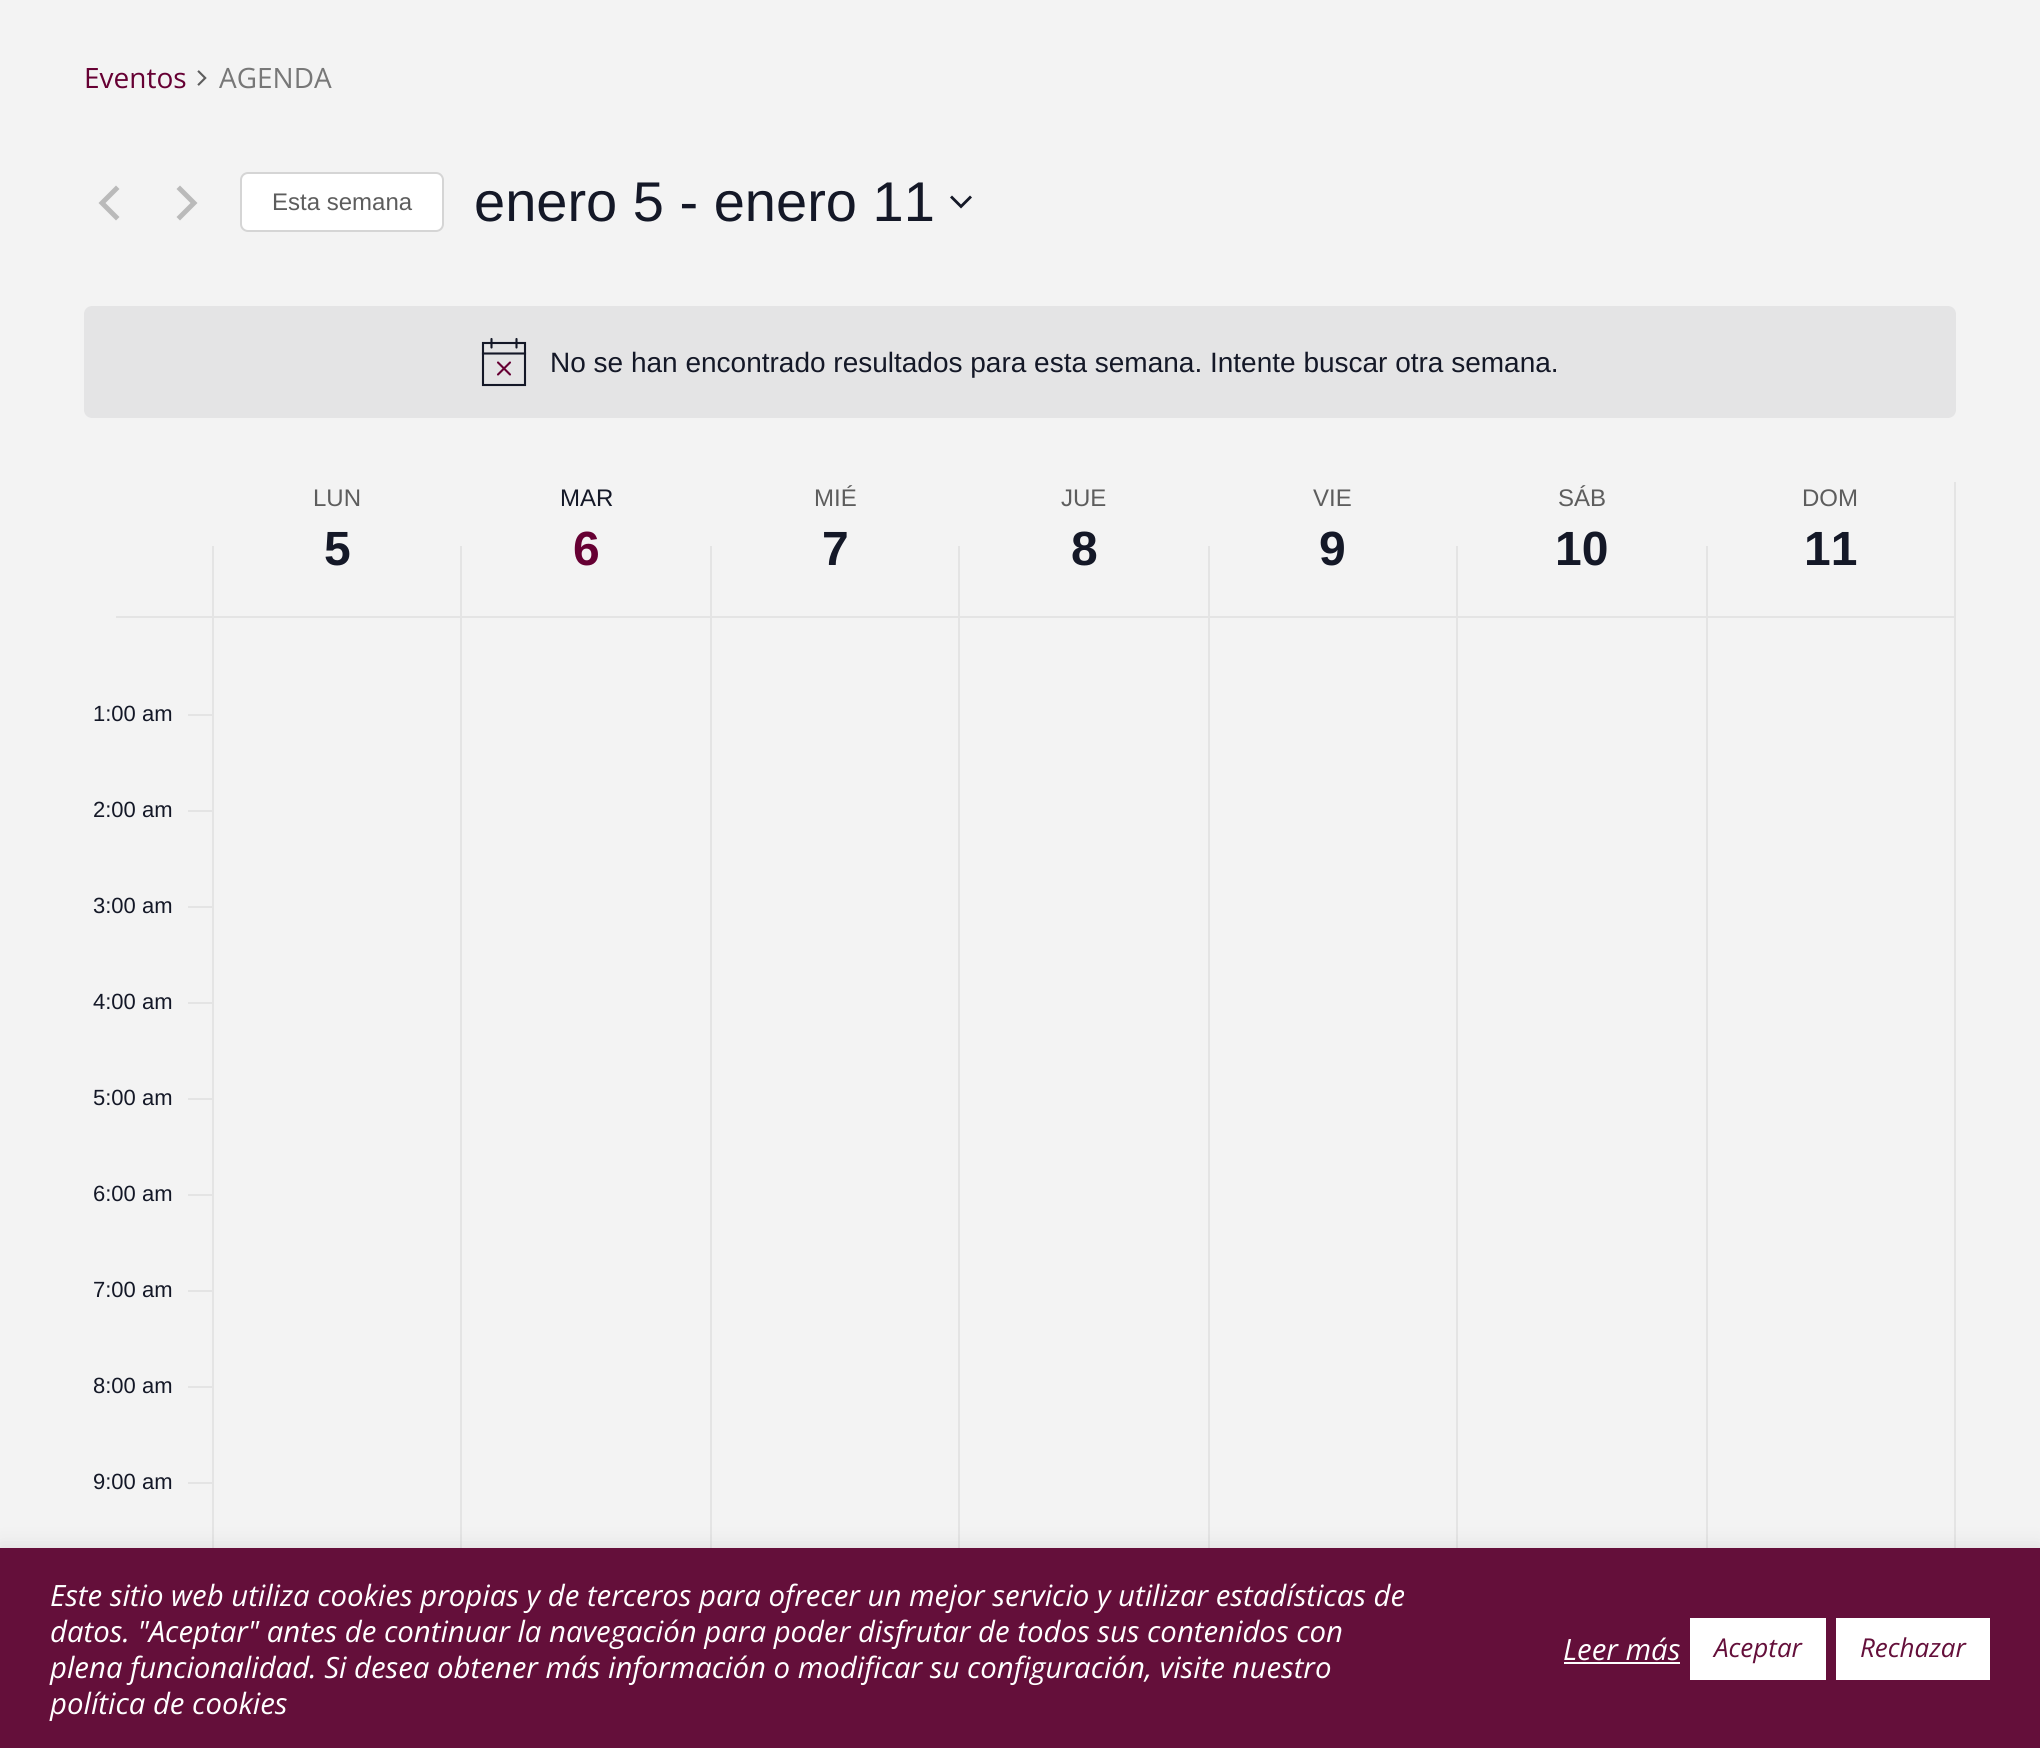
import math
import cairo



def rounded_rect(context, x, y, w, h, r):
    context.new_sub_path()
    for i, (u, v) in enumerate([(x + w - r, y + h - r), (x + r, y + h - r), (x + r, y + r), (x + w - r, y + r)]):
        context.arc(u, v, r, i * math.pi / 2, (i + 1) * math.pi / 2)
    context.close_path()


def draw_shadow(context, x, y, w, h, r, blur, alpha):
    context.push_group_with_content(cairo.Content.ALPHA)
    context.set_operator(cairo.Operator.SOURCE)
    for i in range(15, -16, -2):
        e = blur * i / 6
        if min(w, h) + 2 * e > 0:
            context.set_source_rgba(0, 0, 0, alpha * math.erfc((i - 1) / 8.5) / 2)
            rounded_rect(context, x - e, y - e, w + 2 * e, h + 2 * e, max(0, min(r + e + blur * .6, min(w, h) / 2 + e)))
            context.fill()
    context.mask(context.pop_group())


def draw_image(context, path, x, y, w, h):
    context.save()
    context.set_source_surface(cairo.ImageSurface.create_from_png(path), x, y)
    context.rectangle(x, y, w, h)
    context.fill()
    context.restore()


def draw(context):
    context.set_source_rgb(243 / 255, 243 / 255, 243 / 255)
    context.paint()
    draw_image(context, "images/1.png", 197, 70, 10, 16)
    context.set_source_rgb(186 / 255, 186 / 255, 186 / 255)
    context.new_path()
    context.move_to(119.5, 217)
    context.line_to(116, 220.5)
    context.line_to(98.5, 203)
    context.line_to(116, 185.5)
    context.line_to(119.5, 189)
    context.line_to(105.5, 203)
    context.close_path()
    context.fill()
    context.new_path()
    context.move_to(176.5, 189)
    context.line_to(180, 185.5)
    context.line_to(197.5, 203)
    context.line_to(180, 220.5)
    context.line_to(176.5, 217)
    context.line_to(190.5, 203)
    context.close_path()
    context.fill()
    context.set_source_rgb(1, 1, 1)
    rounded_rect(context, 241, 173, 202, 58, 7)
    context.fill_preserve()
    context.set_source_rgb(213 / 255, 213 / 255, 213 / 255)
    context.stroke()
    context.set_source_rgb(20 / 255, 24 / 255, 39 / 255)
    context.set_fill_rule(cairo.FillRule.EVEN_ODD)
    context.new_path()
    context.move_to(952, 195.5)
    context.line_to(961, 204.5)
    context.line_to(970, 195.5)
    context.line_to(972, 197.5)
    context.line_to(961, 208.5)
    context.line_to(950, 197.5)
    context.close_path()
    context.fill()
    context.set_source_rgb(228 / 255, 228 / 255, 229 / 255)
    rounded_rect(context, 84, 306, 1872, 112, 8)
    context.fill()
    context.new_path()
    context.move_to(483, 343)
    context.line_to(525, 343)
    context.line_to(525, 385)
    context.line_to(483, 385)
    context.close_path()
    context.set_source_rgb(20 / 255, 24 / 255, 39 / 255)
    context.set_line_width(2.1)
    context.stroke()
    context.new_path()
    context.move_to(498, 362.5)
    context.line_to(510, 374.5)
    context.move_to(510, 362.5)
    context.line_to(498, 374.5)
    context.set_source_rgb(102 / 255, 0, 51 / 255)
    context.set_line_cap(cairo.LineCap.ROUND)
    context.stroke()
    context.new_path()
    context.move_to(491.5, 339)
    context.line_to(491.5, 347.5)
    context.move_to(516.5, 339)
    context.line_to(516.5, 347.5)
    context.set_source_rgb(20 / 255, 24 / 255, 39 / 255)
    context.stroke()
    context.new_path()
    context.move_to(483, 353.5)
    context.line_to(525, 353.5)
    context.set_line_cap(cairo.LineCap.SQUARE)
    context.stroke()
    context.set_source_rgb(228 / 255, 228 / 255, 228 / 255)
    context.rectangle(1954, 482, 2, 1066)
    context.fill()
    context.rectangle(116, 616, 1838, 2)
    context.fill()
    context.rectangle(212, 546, 2, 1002)
    context.fill()
    context.rectangle(460, 546, 2, 1002)
    context.fill()
    context.rectangle(710, 546, 2, 1002)
    context.fill()
    context.rectangle(958, 546, 2, 1002)
    context.fill()
    context.rectangle(1208, 546, 2, 1002)
    context.fill()
    context.rectangle(1456, 546, 2, 1002)
    context.fill()
    context.rectangle(1706, 546, 2, 1002)
    context.fill()
    context.rectangle(188, 714, 24, 2)
    context.fill()
    context.rectangle(188, 810, 24, 2)
    context.fill()
    context.rectangle(188, 906, 24, 2)
    context.fill()
    context.rectangle(188, 1002, 24, 2)
    context.fill()
    context.rectangle(188, 1098, 24, 2)
    context.fill()
    context.rectangle(188, 1194, 24, 2)
    context.fill()
    context.rectangle(188, 1290, 24, 2)
    context.fill()
    context.rectangle(188, 1386, 24, 2)
    context.fill()
    context.rectangle(188, 1482, 24, 2)
    context.fill()
    context.set_source_rgb(172 / 255, 171 / 255, 171 / 255)
    draw_shadow(context, 0, 1546, 2040, 200, 0, 10, 0.3)
    context.set_source_rgb(100 / 255, 15 / 255, 58 / 255)
    context.rectangle(0, 1548, 2040, 200)
    context.fill()
    context.set_source_rgb(1, 1, 1)
    context.rectangle(1564, 1662, 116, 2)
    context.fill()
    context.rectangle(1690, 1618, 136, 62)
    context.fill()
    context.rectangle(1836, 1618, 154, 62)
    context.fill()
    context.select_font_face("Open Sans")
    context.set_font_size(28)
    context.set_source_rgb(102 / 255, 0, 51 / 255)
    context.move_to(84, 88)
    context.show_text("Eventos")
    context.set_source_rgb(119 / 255, 119 / 255, 119 / 255)
    context.move_to(219, 88)
    context.show_text("AGENDA")
    context.select_font_face("Liberation Sans")
    context.set_font_size(24)
    context.set_source_rgb(93 / 255, 93 / 255, 93 / 255)
    context.move_to(272, 210)
    context.show_text("Esta semana")
    context.set_font_size(56)
    context.set_source_rgb(20 / 255, 24 / 255, 39 / 255)
    context.move_to(474, 221)
    context.show_text("enero 5 - enero 11")
    context.set_font_size(28)
    context.move_to(550, 372)
    context.show_text("No se han encontrado resultados para esta semana. Intente buscar otra semana.")
    context.set_font_size(24)
    context.set_source_rgb(93 / 255, 93 / 255, 93 / 255)
    context.move_to(313, 506)
    context.show_text("LUN")
    context.select_font_face("Liberation Sans", cairo.FontSlant.NORMAL, cairo.FontWeight.BOLD)
    context.set_font_size(48)
    context.set_source_rgb(20 / 255, 24 / 255, 39 / 255)
    context.move_to(324, 565)
    context.show_text("5")
    context.select_font_face("Liberation Sans")
    context.set_font_size(24)
    context.move_to(560, 506)
    context.show_text("MAR")
    context.select_font_face("Liberation Sans", cairo.FontSlant.NORMAL, cairo.FontWeight.BOLD)
    context.set_font_size(48)
    context.set_source_rgb(102 / 255, 0, 51 / 255)
    context.move_to(573, 565)
    context.show_text("6")
    context.select_font_face("Liberation Sans")
    context.set_font_size(24)
    context.set_source_rgb(93 / 255, 93 / 255, 93 / 255)
    context.move_to(814, 506)
    context.show_text("MIÉ")
    context.select_font_face("Liberation Sans", cairo.FontSlant.NORMAL, cairo.FontWeight.BOLD)
    context.set_font_size(48)
    context.set_source_rgb(20 / 255, 24 / 255, 39 / 255)
    context.move_to(822, 565)
    context.show_text("7")
    context.select_font_face("Liberation Sans")
    context.set_font_size(24)
    context.set_source_rgb(93 / 255, 93 / 255, 93 / 255)
    context.move_to(1061, 506)
    context.show_text("JUE")
    context.select_font_face("Liberation Sans", cairo.FontSlant.NORMAL, cairo.FontWeight.BOLD)
    context.set_font_size(48)
    context.set_source_rgb(20 / 255, 24 / 255, 39 / 255)
    context.move_to(1071, 565)
    context.show_text("8")
    context.select_font_face("Liberation Sans")
    context.set_font_size(24)
    context.set_source_rgb(93 / 255, 93 / 255, 93 / 255)
    context.move_to(1313, 506)
    context.show_text("VIE")
    context.select_font_face("Liberation Sans", cairo.FontSlant.NORMAL, cairo.FontWeight.BOLD)
    context.set_font_size(48)
    context.set_source_rgb(20 / 255, 24 / 255, 39 / 255)
    context.move_to(1319, 565)
    context.show_text("9")
    context.select_font_face("Liberation Sans")
    context.set_font_size(24)
    context.set_source_rgb(93 / 255, 93 / 255, 93 / 255)
    context.move_to(1558, 506)
    context.show_text("SÁB")
    context.select_font_face("Liberation Sans", cairo.FontSlant.NORMAL, cairo.FontWeight.BOLD)
    context.set_font_size(48)
    context.set_source_rgb(20 / 255, 24 / 255, 39 / 255)
    context.move_to(1555, 565)
    context.show_text("10")
    context.select_font_face("Liberation Sans")
    context.set_font_size(24)
    context.set_source_rgb(93 / 255, 93 / 255, 93 / 255)
    context.move_to(1802, 506)
    context.show_text("DOM")
    context.select_font_face("Liberation Sans", cairo.FontSlant.NORMAL, cairo.FontWeight.BOLD)
    context.set_font_size(48)
    context.set_source_rgb(20 / 255, 24 / 255, 39 / 255)
    context.move_to(1804, 565)
    context.show_text("11")
    context.select_font_face("Liberation Sans")
    context.set_font_size(22)
    context.move_to(93, 721)
    context.show_text("1:00 am")
    context.move_to(93, 817)
    context.show_text("2:00 am")
    context.move_to(93, 913)
    context.show_text("3:00 am")
    context.move_to(93, 1009)
    context.show_text("4:00 am")
    context.move_to(93, 1105)
    context.show_text("5:00 am")
    context.move_to(93, 1201)
    context.show_text("6:00 am")
    context.move_to(93, 1297)
    context.show_text("7:00 am")
    context.move_to(93, 1393)
    context.show_text("8:00 am")
    context.move_to(93, 1489)
    context.show_text("9:00 am")
    context.select_font_face("Open Sans", cairo.FontSlant.ITALIC)
    context.set_font_size(29.35)
    context.set_source_rgb(1, 1, 1)
    context.move_to(50, 1606)
    context.show_text("Este sitio web utiliza cookies propias y de terceros para ofrecer un mejor servicio y utilizar estadísticas de")
    context.move_to(50, 1642)
    context.show_text("datos. \"Aceptar\" antes de continuar la navegación para poder disfrutar de todos sus contenidos con")
    context.move_to(50, 1678)
    context.show_text("plena funcionalidad. Si desea obtener más información o modificar su configuración, visite nuestro")
    context.move_to(50, 1714)
    context.show_text("política de cookies")
    context.move_to(1563, 1660)
    context.show_text("Leer más")
    context.set_font_size(26)
    context.set_source_rgb(100 / 255, 15 / 255, 58 / 255)
    context.move_to(1714, 1657)
    context.show_text("Aceptar")
    context.move_to(1860, 1657)
    context.show_text("Rechazar")


surface = cairo.ImageSurface(cairo.Format.RGB24, 2040, 1748)
context = cairo.Context(surface)
options = cairo.FontOptions()
options.set_hint_metrics(cairo.HintMetrics.OFF)
options.set_hint_style(cairo.HintStyle.NONE)
context.set_font_options(options)
context.set_miter_limit(4)
draw(context)
surface.write_to_png("out.png")
